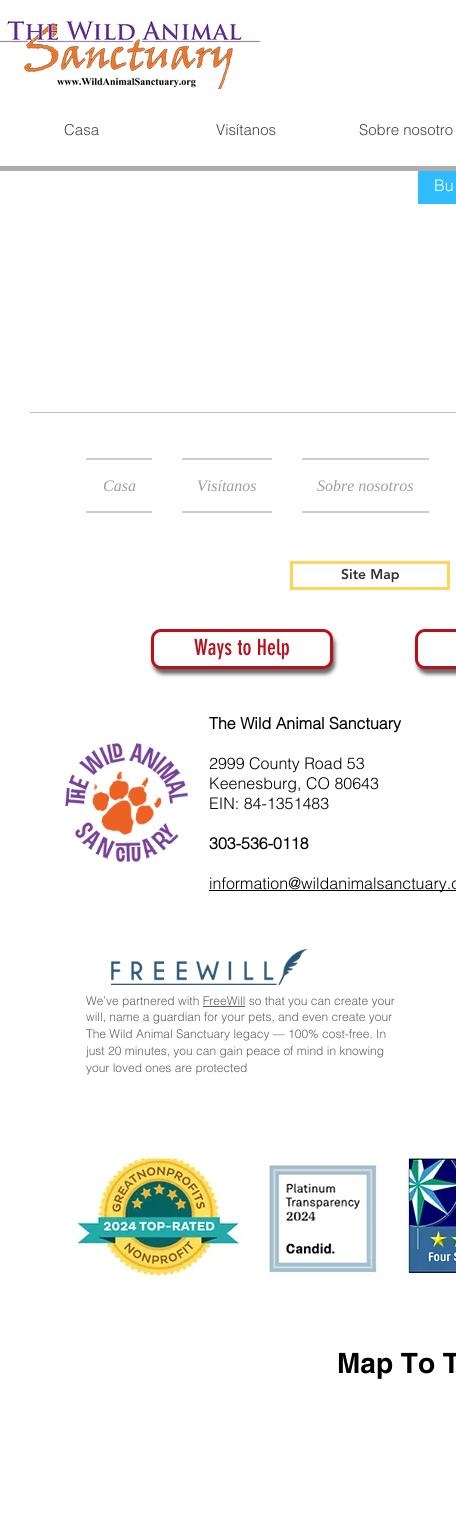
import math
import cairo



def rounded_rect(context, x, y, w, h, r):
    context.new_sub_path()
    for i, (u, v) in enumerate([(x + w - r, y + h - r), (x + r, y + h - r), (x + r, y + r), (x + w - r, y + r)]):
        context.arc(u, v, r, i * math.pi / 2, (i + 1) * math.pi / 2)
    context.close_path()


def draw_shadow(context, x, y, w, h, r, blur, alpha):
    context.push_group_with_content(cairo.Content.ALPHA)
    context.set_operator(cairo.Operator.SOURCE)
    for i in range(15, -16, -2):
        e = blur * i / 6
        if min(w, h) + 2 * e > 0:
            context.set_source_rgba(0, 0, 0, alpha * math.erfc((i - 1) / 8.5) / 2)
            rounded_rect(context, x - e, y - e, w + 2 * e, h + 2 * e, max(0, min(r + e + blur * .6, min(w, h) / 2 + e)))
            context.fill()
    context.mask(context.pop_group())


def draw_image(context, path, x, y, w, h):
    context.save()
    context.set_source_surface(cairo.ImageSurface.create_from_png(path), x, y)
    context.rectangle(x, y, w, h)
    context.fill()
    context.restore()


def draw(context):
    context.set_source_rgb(1, 1, 1)
    context.paint()
    draw_image(context, "images/1.png", 0, 21, 261, 68)
    context.set_source_rgb(173 / 255, 173 / 255, 172 / 255)
    context.rectangle(0, 166, 456, 5)
    context.fill()
    context.set_source_rgb(48 / 255, 189 / 255, 1)
    context.rectangle(418, 171, 38, 33)
    context.fill()
    context.set_source_rgb(193 / 255, 192 / 255, 192 / 255)
    context.rectangle(30, 412, 426, 1)
    context.fill()
    context.set_source_rgb(204 / 255, 204 / 255, 204 / 255)
    context.rectangle(86, 458, 66, 2)
    context.fill()
    context.rectangle(86, 511, 66, 2)
    context.fill()
    context.rectangle(182, 458, 90, 2)
    context.fill()
    context.rectangle(182, 511, 90, 2)
    context.fill()
    context.rectangle(302, 458, 127, 2)
    context.fill()
    context.rectangle(302, 511, 127, 2)
    context.fill()
    context.rectangle(291.5, 562.5, 157, 26)
    context.set_source_rgb(1, 212 / 255, 90 / 255)
    context.set_line_width(3)
    context.stroke()
    context.set_source_rgb(0, 0, 0)
    draw_shadow(context, 153, 634, 182, 40, 10, 2, 0.6)
    context.set_source_rgb(1, 1, 1)
    rounded_rect(context, 152.5, 630.5, 179, 37, 8.5)
    context.fill_preserve()
    context.set_source_rgb(183 / 255, 18 / 255, 27 / 255)
    context.stroke()
    context.set_source_rgb(0, 0, 0)
    draw_shadow(context, 417, 634, 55, 40, 10, 2, 0.6)
    context.set_source_rgb(1, 1, 1)
    rounded_rect(context, 416.5, 630.5, 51, 37, 8.5)
    context.fill_preserve()
    context.set_source_rgb(183 / 255, 18 / 255, 27 / 255)
    context.stroke()
    draw_image(context, "images/2.png", 65, 743, 124, 120)
    context.set_source_rgb(0, 0, 0)
    context.rectangle(209, 890, 247, 1)
    context.fill()
    draw_image(context, "images/3.png", 111, 949, 196, 36)
    context.set_source_rgb(96 / 255, 94 / 255, 94 / 255)
    context.rectangle(203, 1006, 42, 1)
    context.fill()
    draw_image(context, "images/4.png", 73, 1151, 383, 128)
    context.select_font_face("helvetica Light")
    context.set_font_size(15)
    context.set_source_rgb(68 / 255, 68 / 255, 68 / 255)
    context.move_to(64, 135)
    context.show_text("Casa")
    context.move_to(216, 135)
    context.show_text("Visítanos")
    context.move_to(359, 135)
    context.show_text("Sobre nosotro")
    context.set_font_size(16)
    context.set_source_rgb(1, 1, 1)
    context.move_to(434, 191)
    context.show_text("Bu")
    context.select_font_face("Liberation Serif", cairo.FontSlant.ITALIC)
    context.set_source_rgb(158 / 255, 158 / 255, 158 / 255)
    context.move_to(103, 491)
    context.show_text("Casa")
    context.move_to(197, 491)
    context.show_text("Visítanos")
    context.move_to(317, 491)
    context.show_text("Sobre nosotros")
    context.select_font_face("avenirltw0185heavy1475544 Black")
    context.set_font_size(14)
    context.set_source_rgb(53 / 255, 49 / 255, 49 / 255)
    context.move_to(341, 579)
    context.show_text("Site Map")
    context.select_font_face("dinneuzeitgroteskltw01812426")
    context.set_font_size(22)
    context.set_source_rgb(183 / 255, 18 / 255, 27 / 255)
    context.move_to(194, 655)
    context.show_text("Ways to Help")
    context.select_font_face("helvetica", cairo.FontSlant.NORMAL, cairo.FontWeight.BOLD)
    context.set_font_size(16)
    context.set_source_rgb(0, 0, 0)
    context.move_to(209, 729)
    context.show_text("The Wild Animal Sanctuary")
    context.select_font_face("helvetica Light")
    context.move_to(209, 769)
    context.show_text("2999 County Road 53")
    context.move_to(209, 789)
    context.show_text("Keenesburg, CO 80643")
    context.move_to(209, 809)
    context.show_text("EIN: 84-1351483")
    context.select_font_face("helvetica", cairo.FontSlant.NORMAL, cairo.FontWeight.BOLD)
    context.move_to(209, 849)
    context.show_text("303-536-0118")
    context.select_font_face("helvetica Light")
    context.move_to(209, 889)
    context.show_text("information@wildanimalsanctuary.o")
    context.set_font_size(12)
    context.set_source_rgb(96 / 255, 94 / 255, 94 / 255)
    context.move_to(86, 1005)
    context.show_text("We’ve partnered with FreeWill so that you can create your")
    context.move_to(86, 1021)
    context.show_text("will, name a guardian for your pets, and even create your")
    context.move_to(86, 1038)
    context.show_text("The Wild Animal Sanctuary legacy — 100% cost-free. In")
    context.move_to(86, 1055)
    context.show_text("just 20 minutes, you can gain peace of mind in knowing")
    context.move_to(86, 1072)
    context.show_text("your loved ones are protected")
    context.select_font_face("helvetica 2", cairo.FontSlant.NORMAL, cairo.FontWeight.BOLD)
    context.set_font_size(28)
    context.set_source_rgb(0, 0, 0)
    context.move_to(337, 1373)
    context.show_text("Map To T")


surface = cairo.ImageSurface(cairo.Format.RGB24, 456, 1518)
context = cairo.Context(surface)
options = cairo.FontOptions()
options.set_hint_metrics(cairo.HintMetrics.OFF)
options.set_hint_style(cairo.HintStyle.NONE)
context.set_font_options(options)
context.set_miter_limit(4)
draw(context)
surface.write_to_png("out.png")
